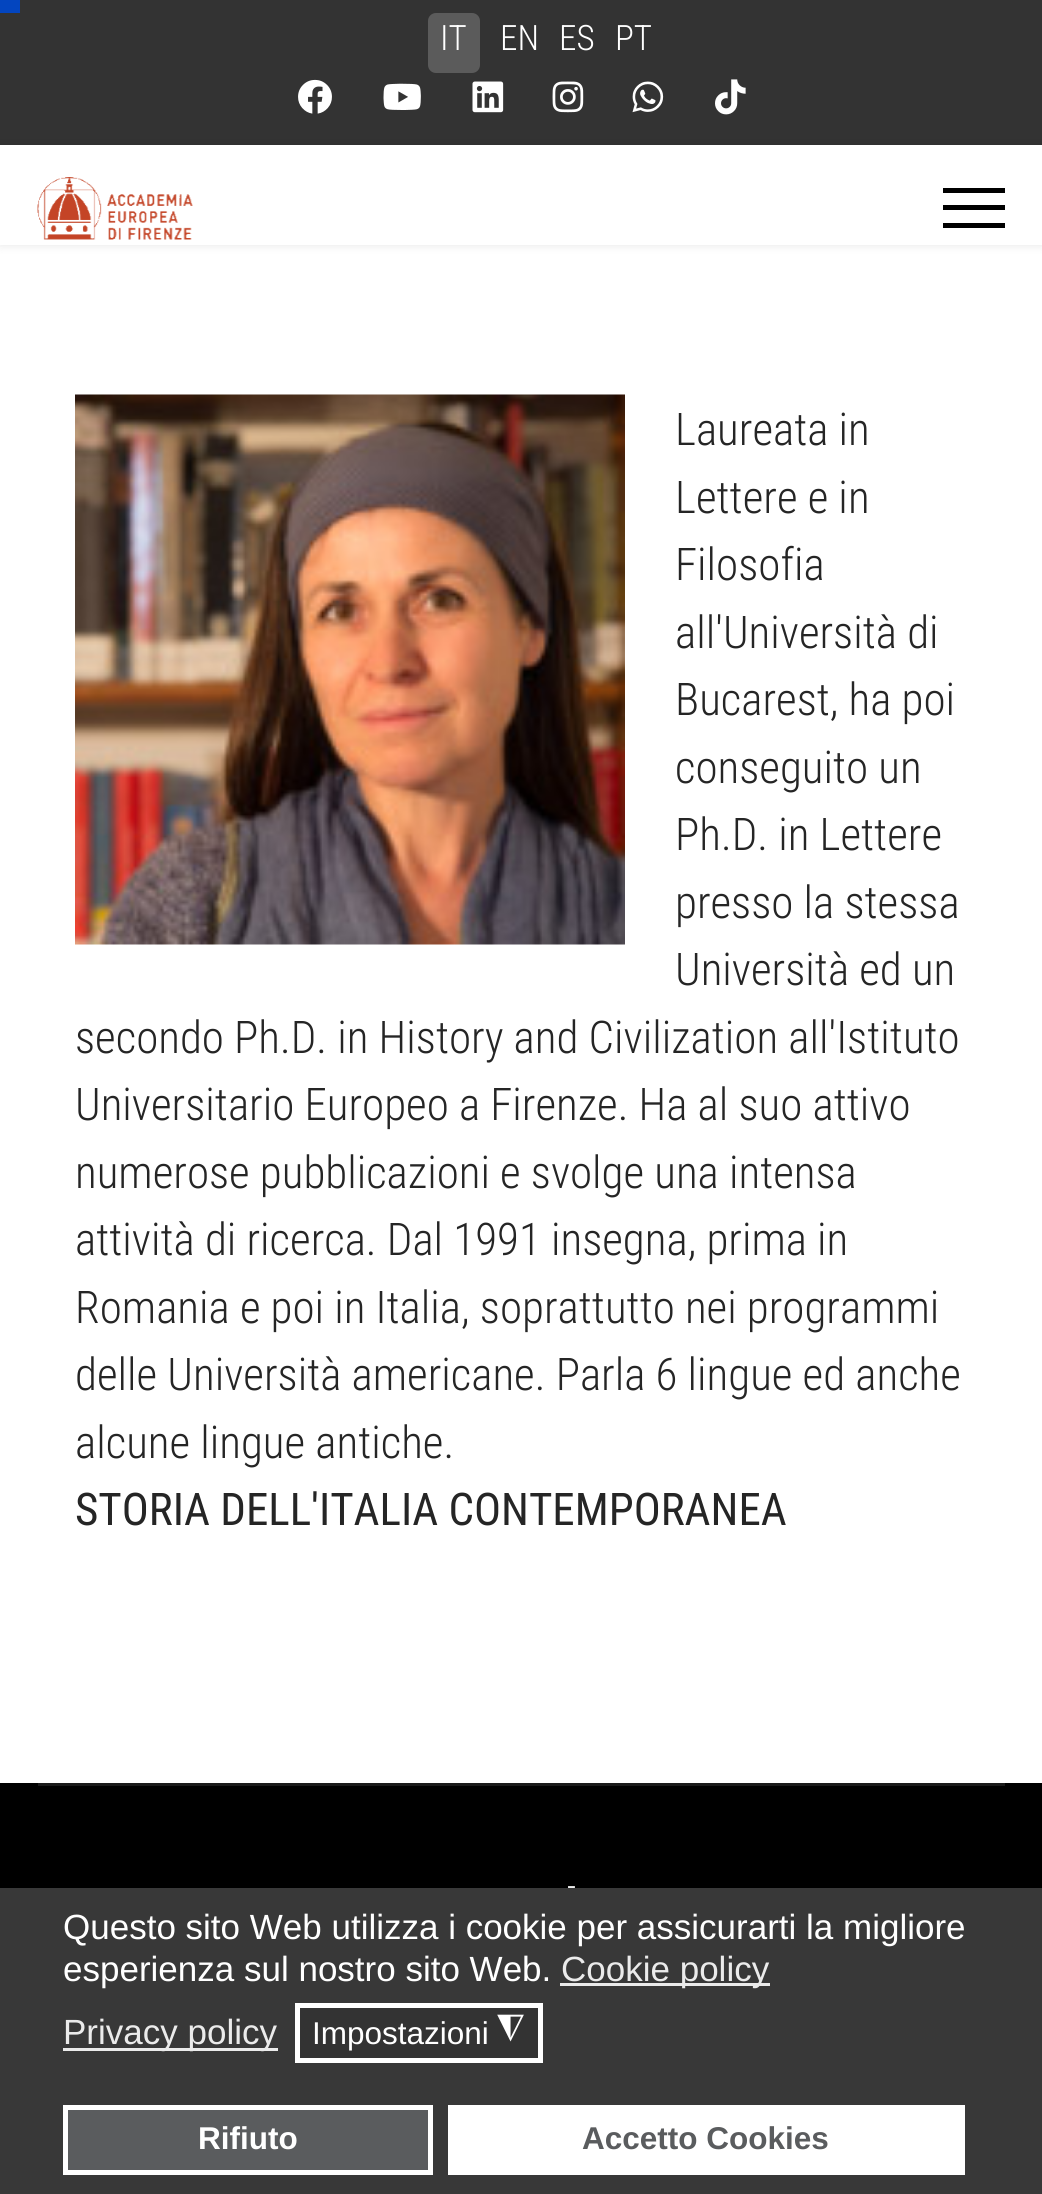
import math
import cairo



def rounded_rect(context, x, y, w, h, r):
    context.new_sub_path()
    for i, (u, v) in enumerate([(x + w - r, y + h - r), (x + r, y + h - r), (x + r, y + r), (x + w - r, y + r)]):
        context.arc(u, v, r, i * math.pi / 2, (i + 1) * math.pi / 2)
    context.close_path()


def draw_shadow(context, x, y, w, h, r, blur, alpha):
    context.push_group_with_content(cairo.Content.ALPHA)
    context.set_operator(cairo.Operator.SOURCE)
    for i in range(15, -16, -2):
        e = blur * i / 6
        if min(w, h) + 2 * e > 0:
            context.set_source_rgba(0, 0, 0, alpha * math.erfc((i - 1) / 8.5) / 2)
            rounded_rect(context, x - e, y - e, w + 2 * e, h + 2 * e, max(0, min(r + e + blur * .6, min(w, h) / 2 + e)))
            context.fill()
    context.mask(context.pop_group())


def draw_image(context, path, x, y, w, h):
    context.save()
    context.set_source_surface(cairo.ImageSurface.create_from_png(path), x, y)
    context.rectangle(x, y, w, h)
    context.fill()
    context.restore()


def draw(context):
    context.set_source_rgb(1, 1, 1)
    context.paint()
    context.set_source_rgb(51 / 255, 51 / 255, 51 / 255)
    context.rectangle(0, 0, 1042, 145)
    context.fill()
    context.set_source_rgb(3 / 255, 69 / 255, 191 / 255)
    context.rectangle(0, 0, 20, 13)
    context.fill()
    context.set_source_rgb(91 / 255, 91 / 255, 91 / 255)
    rounded_rect(context, 428, 13, 52, 60, 8)
    context.fill()
    draw_image(context, "images/1.png", 298, 79, 34, 35)
    draw_image(context, "images/2.png", 383, 83, 38, 27)
    draw_image(context, "images/3.png", 472, 81, 32, 32)
    draw_image(context, "images/4.png", 552, 81, 32, 32)
    draw_image(context, "images/5.png", 632, 81, 32, 32)
    draw_image(context, "images/6.png", 715, 79, 31, 36)
    context.save()
    context.set_fill_rule(cairo.FillRule.EVEN_ODD)
    context.new_path()
    context.move_to(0, 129)
    context.line_to(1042, 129)
    context.line_to(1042, 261)
    context.line_to(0, 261)
    context.close_path()
    context.move_to(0, 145)
    context.line_to(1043, 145)
    context.line_to(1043, 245)
    context.line_to(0, 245)
    context.close_path()
    context.clip()
    context.set_source_rgb(0, 0, 0)
    draw_shadow(context, 0, 145, 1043, 100, 0, 5, 0.1)
    context.restore()
    draw_image(context, "images/7.png", 37, 177, 156, 63)
    context.set_source_rgb(0, 0, 0)
    context.rectangle(943, 188, 62, 5)
    context.fill()
    context.rectangle(943, 205, 62, 5)
    context.fill()
    context.rectangle(943, 223, 62, 5)
    context.fill()
    draw_image(context, "images/8.png", 75, 394, 550, 551)
    context.rectangle(0, 1783, 1042, 105)
    context.fill()
    context.set_source_rgb(26 / 255, 26 / 255, 26 / 255)
    context.rectangle(38, 1783, 967, 3)
    context.fill()
    context.set_source_rgb(56 / 255, 56 / 255, 56 / 255)
    context.rectangle(0, 1888, 1042, 306)
    context.fill()
    context.set_source_rgb(235 / 255, 235 / 255, 235 / 255)
    context.rectangle(560, 1983, 210, 3)
    context.fill()
    context.rectangle(63, 2048, 215, 3)
    context.fill()
    context.set_source_rgb(51 / 255, 51 / 255, 51 / 255)
    context.rectangle(297.5, 2005.5, 243, 55)
    context.fill_preserve()
    context.set_source_rgb(1, 1, 1)
    context.set_line_width(5)
    context.stroke()
    context.set_source_rgb(90 / 255, 92 / 255, 94 / 255)
    context.rectangle(65.5, 2107.5, 365, 65)
    context.fill_preserve()
    context.set_source_rgb(1, 1, 1)
    context.stroke()
    context.rectangle(448, 2105, 517, 70)
    context.fill()
    context.select_font_face("Roboto Condensed Light")
    context.set_font_size(35)
    context.move_to(440, 50)
    context.show_text("IT")
    context.move_to(500, 50)
    context.show_text("EN")
    context.move_to(559, 50)
    context.show_text("ES")
    context.move_to(615, 50)
    context.show_text("PT")
    context.set_font_size(45)
    context.set_source_rgb(37 / 255, 37 / 255, 37 / 255)
    context.move_to(675, 445)
    context.show_text("Laureata in")
    context.move_to(675, 513)
    context.show_text("Lettere e in")
    context.move_to(675, 580)
    context.show_text("Filosofia")
    context.move_to(675, 648)
    context.show_text("all'Università di")
    context.move_to(675, 715)
    context.show_text("Bucarest, ha poi")
    context.move_to(675, 783)
    context.show_text("conseguito un")
    context.move_to(675, 850)
    context.show_text("Ph.D. in Lettere")
    context.move_to(675, 918)
    context.show_text("presso la stessa")
    context.move_to(675, 985)
    context.show_text("Università ed un")
    context.move_to(75, 1053)
    context.show_text("secondo Ph.D. in History and Civilization all'Istituto")
    context.move_to(75, 1120)
    context.show_text("Universitario Europeo a Firenze. Ha al suo attivo")
    context.move_to(75, 1188)
    context.show_text("numerose pubblicazioni e svolge una intensa")
    context.move_to(75, 1255)
    context.show_text("attività di ricerca. Dal 1991 insegna, prima in")
    context.move_to(75, 1323)
    context.show_text("Romania e poi in Italia, soprattutto nei programmi")
    context.move_to(75, 1390)
    context.show_text("delle Università americane. Parla 6 lingue ed anche")
    context.move_to(75, 1458)
    context.show_text("alcune lingue antiche.")
    context.select_font_face("Roboto Condensed")
    context.move_to(75, 1525)
    context.show_text("STORIA DELL'ITALIA CONTEMPORANEA")
    context.select_font_face("Roboto Condensed Light")
    context.set_font_size(35)
    context.set_source_rgb(1, 1, 1)
    context.move_to(567, 1898)
    context.show_text("-")
    context.select_font_face("Liberation Sans")
    context.move_to(63, 1939)
    context.show_text("Questo sito Web utilizza i cookie per assicurarti la migliore")
    context.move_to(63, 1981)
    context.show_text("esperienza sul nostro sito Web.")
    context.set_source_rgb(235 / 255, 235 / 255, 235 / 255)
    context.move_to(561, 1981)
    context.show_text("Cookie policy")
    context.move_to(63, 2044)
    context.show_text("Privacy policy")
    context.set_font_size(31.5)
    context.set_source_rgb(1, 1, 1)
    context.move_to(312, 2044)
    context.show_text("Impostazioni")
    context.select_font_face("DejaVu Sans")
    context.set_font_size(35)
    context.save()
    context.translate(524, 2019)
    context.rotate(180 * math.pi / 180)
    context.move_to(0, 0)
    context.show_text("◮")
    context.restore()
    context.select_font_face("Liberation Sans", cairo.FontSlant.NORMAL, cairo.FontWeight.BOLD)
    context.set_font_size(31.5)
    context.move_to(198, 2149)
    context.show_text("Rifiuto")
    context.set_source_rgb(90 / 255, 92 / 255, 94 / 255)
    context.move_to(582, 2149)
    context.show_text("Accetto Cookies")


surface = cairo.ImageSurface(cairo.Format.RGB24, 1042, 2194)
context = cairo.Context(surface)
options = cairo.FontOptions()
options.set_hint_metrics(cairo.HintMetrics.OFF)
options.set_hint_style(cairo.HintStyle.NONE)
context.set_font_options(options)
context.set_miter_limit(4)
draw(context)
surface.write_to_png("out.png")
